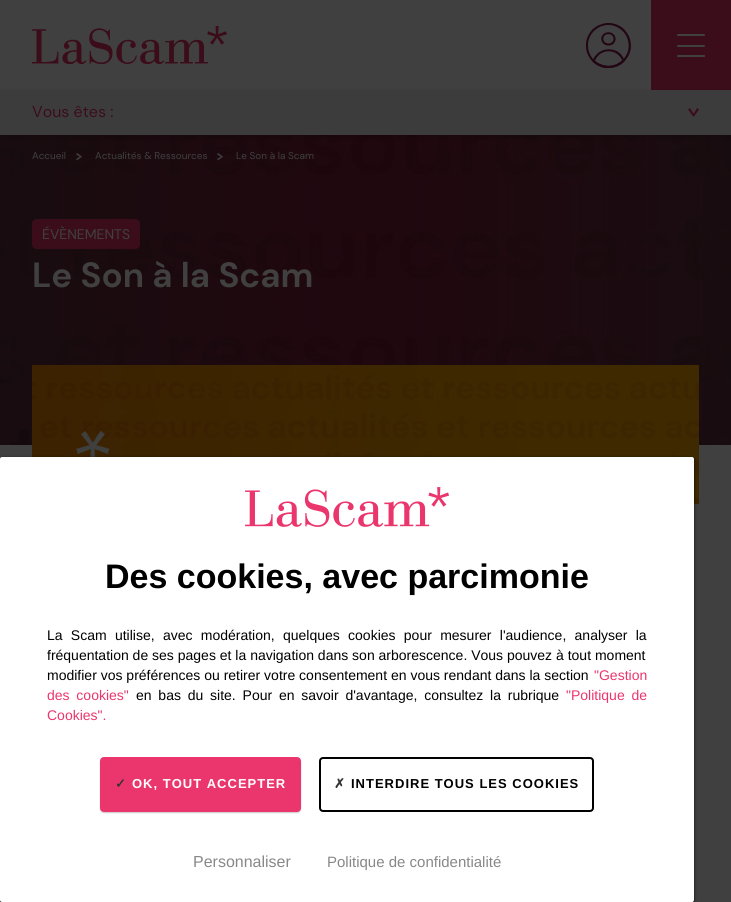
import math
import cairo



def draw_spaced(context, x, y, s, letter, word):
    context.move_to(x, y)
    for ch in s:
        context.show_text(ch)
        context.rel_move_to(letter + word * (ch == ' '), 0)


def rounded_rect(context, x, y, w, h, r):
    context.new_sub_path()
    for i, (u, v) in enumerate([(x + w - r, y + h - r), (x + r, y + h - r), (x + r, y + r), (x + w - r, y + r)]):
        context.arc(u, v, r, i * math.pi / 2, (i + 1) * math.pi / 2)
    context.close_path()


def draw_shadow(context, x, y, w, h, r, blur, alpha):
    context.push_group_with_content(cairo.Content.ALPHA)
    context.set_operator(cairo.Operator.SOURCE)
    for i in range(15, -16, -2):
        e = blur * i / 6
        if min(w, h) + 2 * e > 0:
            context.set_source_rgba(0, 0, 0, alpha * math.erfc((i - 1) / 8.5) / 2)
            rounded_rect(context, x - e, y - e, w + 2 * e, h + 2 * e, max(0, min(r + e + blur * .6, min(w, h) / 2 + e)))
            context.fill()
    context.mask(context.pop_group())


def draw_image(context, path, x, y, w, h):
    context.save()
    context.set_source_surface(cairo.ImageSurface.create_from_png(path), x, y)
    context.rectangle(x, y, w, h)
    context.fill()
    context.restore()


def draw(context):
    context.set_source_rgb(64 / 255, 64 / 255, 64 / 255)
    context.paint()
    draw_image(context, "images/1.png", 32, 26, 195, 38)
    draw_image(context, "images/2.png", 586, 23, 45, 45)
    draw_image(context, "images/6.png", 0, 135, 731, 310)
    context.set_source_rgb(0, 0, 0)
    draw_shadow(context, 0, 93, 731, 45, 0, 3, 0.16)
    context.set_source_rgb(59 / 255, 13 / 255, 27 / 255)
    context.rectangle(651, 0, 80, 90)
    context.fill()
    context.set_source_rgb(64 / 255, 64 / 255, 64 / 255)
    rounded_rect(context, 677, 34, 28, 2, 1)
    context.fill()
    rounded_rect(context, 677, 45, 28, 2, 1)
    context.fill()
    rounded_rect(context, 677, 55, 28, 2, 1)
    context.fill()
    context.set_source_rgb(61 / 255, 60 / 255, 60 / 255)
    context.rectangle(0, 90, 731, 45)
    context.fill()
    draw_image(context, "images/3.png", 688, 108, 11, 9)
    draw_image(context, "images/4.png", 76, 153, 6, 7)
    draw_image(context, "images/5.png", 217, 153, 6, 7)
    context.set_source_rgb(59 / 255, 13 / 255, 27 / 255)
    rounded_rect(context, 32, 219, 108, 30, 5)
    context.fill()
    draw_image(context, "images/7.png", 32, 365, 667, 139)
    context.set_source_rgb(0, 0, 0)
    draw_shadow(context, 0, 458, 694, 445, 2, 1.5, 0.75)
    context.set_source_rgb(1, 1, 1)
    rounded_rect(context, 0, 457, 694, 445, 2)
    context.fill()
    draw_image(context, "images/8.png", 245, 487, 204, 40)
    context.set_source_rgb(0, 0, 0)
    draw_shadow(context, 100, 758, 201, 55, 4, 0.5, 0.2)
    context.set_source_rgb(235 / 255, 53 / 255, 109 / 255)
    rounded_rect(context, 101, 758, 199, 53, 3)
    context.fill_preserve()
    context.stroke()
    rounded_rect(context, 320, 758, 273, 53, 3)
    context.set_source_rgb(0, 0, 0)
    context.stroke()
    context.select_font_face("DM Sans")
    context.set_font_size(16)
    context.set_source_rgb(59 / 255, 13 / 255, 27 / 255)
    context.move_to(32, 117)
    context.show_text("Vous êtes :")
    context.set_font_size(10)
    context.set_source_rgb(64 / 255, 64 / 255, 64 / 255)
    context.move_to(32, 159)
    context.show_text("Accueil")
    context.move_to(95, 159)
    context.show_text("Actualités & Ressources")
    context.move_to(236, 159)
    context.show_text("Le Son à la Scam")
    context.set_font_size(14)
    context.move_to(42, 239)
    context.show_text("ÉVÈNEMENTS")
    context.select_font_face("DM Sans", cairo.FontSlant.NORMAL, cairo.FontWeight.BOLD)
    context.set_font_size(35)
    context.move_to(32, 287)
    context.show_text("Le Son à la Scam")
    context.select_font_face("Liberation Sans", cairo.FontSlant.NORMAL, cairo.FontWeight.BOLD)
    context.set_font_size(34)
    context.set_source_rgb(0, 0, 0)
    context.move_to(105, 588)
    context.show_text("Des cookies, avec parcimonie")
    context.select_font_face("Liberation Sans")
    context.set_font_size(14)
    draw_spaced(context, 47, 640, "La Scam utilise, avec modération, quelques cookies pour mesurer l'audience, analyser la", 0, 4.4)
    context.move_to(47, 660)
    context.show_text("fréquentation de ses pages et la navigation dans son arborescence. Vous pouvez à tout moment")
    context.move_to(47, 680)
    context.show_text("modifier vos préférences ou retirer votre consentement en vous rendant dans la section")
    context.set_source_rgb(235 / 255, 53 / 255, 109 / 255)
    context.move_to(594, 680)
    context.show_text("\"Gestion")
    draw_spaced(context, 47, 700, "des cookies\"", 0, 2.9)
    context.set_source_rgb(0, 0, 0)
    draw_spaced(context, 136, 700, "en bas du site. Pour en savoir d'avantage, consultez la rubrique", 0, 2.9)
    context.set_source_rgb(235 / 255, 53 / 255, 109 / 255)
    draw_spaced(context, 566, 700, "\"Politique de", 0, 2.9)
    context.move_to(47, 720)
    context.show_text("Cookies\".")
    context.select_font_face("DejaVu Sans", cairo.FontSlant.NORMAL, cairo.FontWeight.BOLD)
    context.set_font_size(13)
    context.set_source_rgb(51 / 255, 51 / 255, 51 / 255)
    draw_spaced(context, 115, 788, "✓", 1, 0)
    context.select_font_face("Liberation Sans", cairo.FontSlant.NORMAL, cairo.FontWeight.BOLD)
    context.set_source_rgb(1, 1, 1)
    draw_spaced(context, 132, 788, "OK, TOUT ACCEPTER", 1, 0)
    context.select_font_face("DejaVu Sans", cairo.FontSlant.NORMAL, cairo.FontWeight.BOLD)
    context.set_source_rgb(51 / 255, 51 / 255, 51 / 255)
    draw_spaced(context, 334, 788, "✗", 1, 0)
    context.select_font_face("Liberation Sans", cairo.FontSlant.NORMAL, cairo.FontWeight.BOLD)
    context.set_source_rgb(0, 0, 0)
    draw_spaced(context, 351, 788, "INTERDIRE TOUS LES COOKIES", 1, 0)
    context.select_font_face("Liberation Sans")
    context.set_font_size(16)
    context.set_source_rgb(136 / 255, 136 / 255, 136 / 255)
    context.move_to(193, 867)
    context.show_text("Personnaliser")
    context.set_font_size(15)
    context.move_to(327, 867)
    context.show_text("Politique de confidentialité")


surface = cairo.ImageSurface(cairo.Format.RGB24, 731, 902)
context = cairo.Context(surface)
options = cairo.FontOptions()
options.set_hint_metrics(cairo.HintMetrics.OFF)
options.set_hint_style(cairo.HintStyle.NONE)
context.set_font_options(options)
context.set_miter_limit(4)
draw(context)
surface.write_to_png("out.png")
